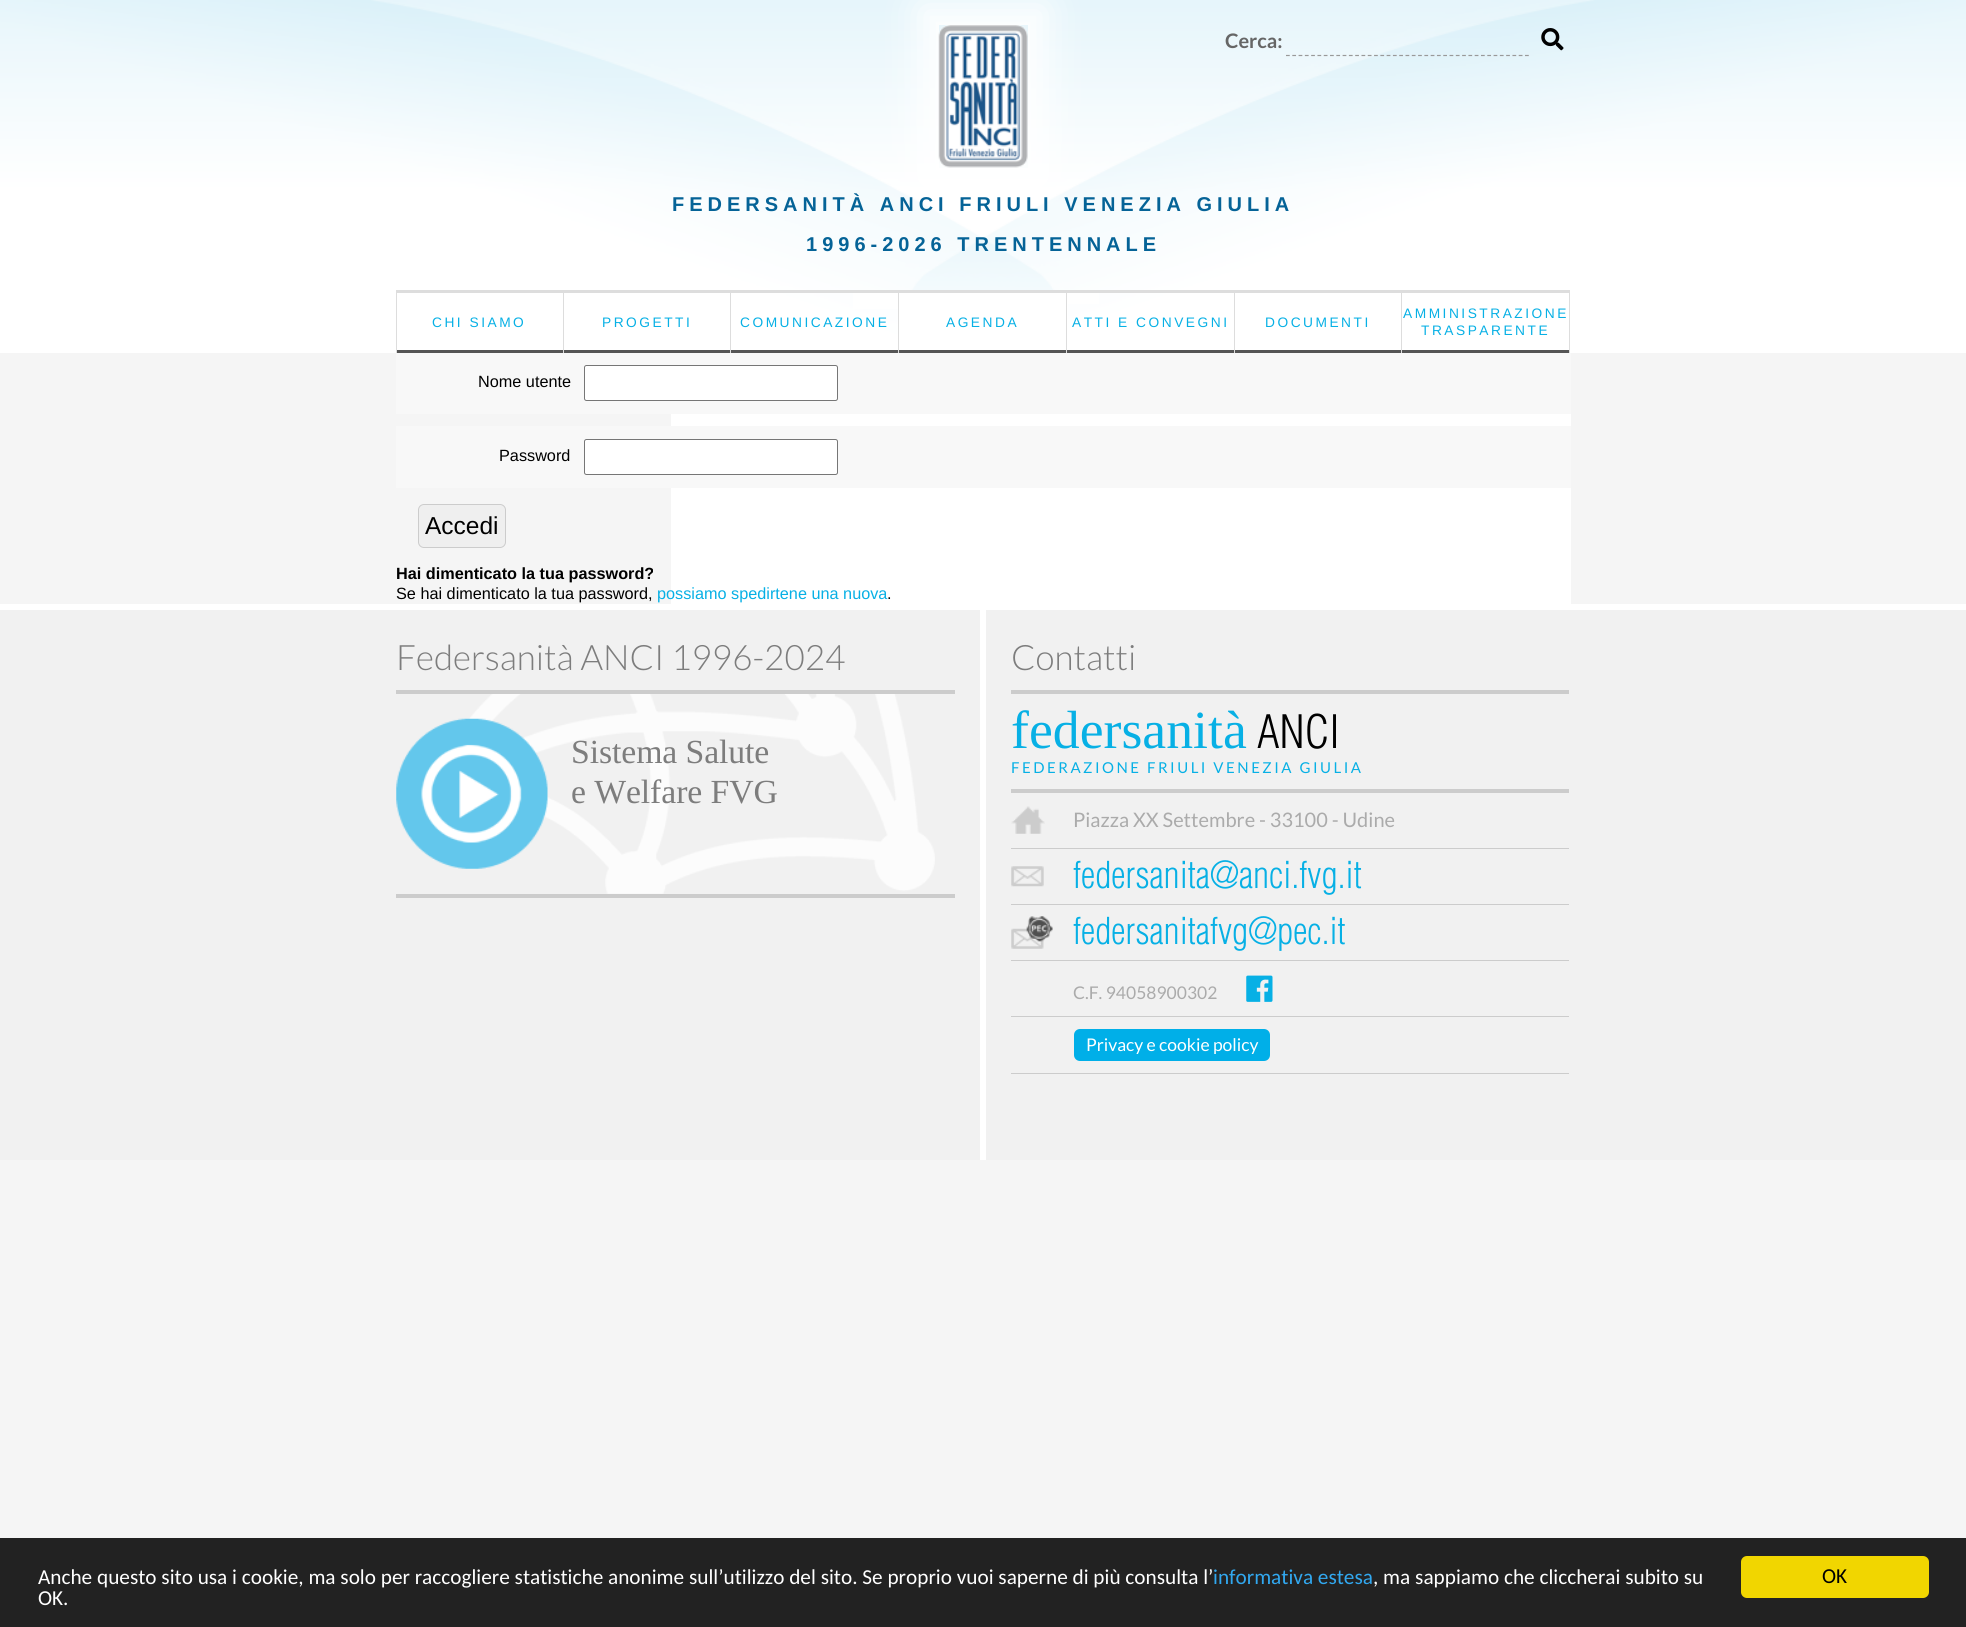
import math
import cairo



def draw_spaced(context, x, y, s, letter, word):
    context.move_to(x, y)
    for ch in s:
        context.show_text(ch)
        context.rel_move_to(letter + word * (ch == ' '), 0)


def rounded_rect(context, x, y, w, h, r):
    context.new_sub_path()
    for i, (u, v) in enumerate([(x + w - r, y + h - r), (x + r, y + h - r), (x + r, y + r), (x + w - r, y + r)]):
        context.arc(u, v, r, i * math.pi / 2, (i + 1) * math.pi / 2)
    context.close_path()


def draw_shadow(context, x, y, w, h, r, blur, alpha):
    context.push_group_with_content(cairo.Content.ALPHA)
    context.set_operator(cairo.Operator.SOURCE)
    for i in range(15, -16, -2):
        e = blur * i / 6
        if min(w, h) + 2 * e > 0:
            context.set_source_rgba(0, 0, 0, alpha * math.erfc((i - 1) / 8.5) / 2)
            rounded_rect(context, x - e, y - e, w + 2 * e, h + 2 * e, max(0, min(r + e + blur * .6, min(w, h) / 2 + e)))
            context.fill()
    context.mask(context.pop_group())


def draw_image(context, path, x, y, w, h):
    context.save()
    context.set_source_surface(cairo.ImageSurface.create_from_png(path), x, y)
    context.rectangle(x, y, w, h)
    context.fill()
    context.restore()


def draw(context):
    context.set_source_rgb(245 / 255, 245 / 255, 245 / 255)
    context.paint()
    context.set_source_rgb(1, 1, 1)
    context.rectangle(0, 339, 1966, 14)
    context.fill()
    draw_image(context, "images/1.png", 0, 0, 1966, 339)
    context.save()
    context.set_fill_rule(cairo.FillRule.EVEN_ODD)
    context.new_path()
    context.move_to(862, 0)
    context.line_to(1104, 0)
    context.line_to(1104, 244)
    context.line_to(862, 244)
    context.close_path()
    context.move_to(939, 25)
    context.line_to(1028, 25)
    context.line_to(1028, 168)
    context.line_to(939, 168)
    context.close_path()
    context.clip()
    context.set_source_rgb(1, 1, 1)
    draw_shadow(context, 920, 6, 126, 180, 0, 19, 1)
    context.restore()
    draw_image(context, "images/2.png", 938, 25, 90, 143)
    draw_image(context, "images/3.png", 1541, 28, 23, 23)
    context.new_path()
    context.move_to(1286, 55.5)
    context.line_to(1529, 55.5)
    context.set_source_rgb(153 / 255, 153 / 255, 153 / 255)
    context.set_line_width(1.2)
    context.set_dash([3.75, 2.54])
    context.stroke()
    context.set_source_rgb(85 / 255, 85 / 255, 85 / 255)
    context.rectangle(396, 350, 1174, 3)
    context.fill()
    context.set_source_rgb(221 / 255, 221 / 255, 221 / 255)
    context.rectangle(396, 290, 1174, 3)
    context.fill()
    context.rectangle(563, 290, 1, 63)
    context.fill()
    context.rectangle(396, 290, 1, 63)
    context.fill()
    context.rectangle(730, 290, 1, 63)
    context.fill()
    context.set_source_rgb(1, 1, 1)
    context.rectangle(853, 293, 45, 16)
    context.fill()
    context.set_source_rgb(221 / 255, 221 / 255, 221 / 255)
    context.rectangle(898, 290, 1, 63)
    context.fill()
    context.set_source_rgb(1, 1, 1)
    context.rectangle(899, 293, 169, 46)
    context.fill()
    context.set_source_rgb(221 / 255, 221 / 255, 221 / 255)
    context.rectangle(1066, 290, 1, 63)
    context.fill()
    context.set_source_rgb(1, 1, 1)
    context.rectangle(1068, 293, 31, 11)
    context.fill()
    context.set_source_rgb(221 / 255, 221 / 255, 221 / 255)
    context.rectangle(1234, 290, 1, 63)
    context.fill()
    context.rectangle(1401, 290, 1, 63)
    context.fill()
    context.rectangle(1569, 290, 1, 63)
    context.fill()
    context.set_source_rgb(1, 1, 1)
    context.rectangle(671, 414, 900, 190)
    context.fill()
    context.set_source_rgb(248 / 255, 248 / 255, 248 / 255)
    context.rectangle(396, 353, 1175, 61)
    context.fill()
    context.set_source_rgb(1, 1, 1)
    rounded_rect(context, 584.5, 365.5, 253, 35, 2)
    context.fill_preserve()
    context.set_source_rgb(118 / 255, 118 / 255, 118 / 255)
    context.set_line_width(1)
    context.set_dash([])
    context.stroke()
    context.set_source_rgb(248 / 255, 248 / 255, 248 / 255)
    context.rectangle(396, 426, 1175, 62)
    context.fill()
    context.set_source_rgb(1, 1, 1)
    rounded_rect(context, 584.5, 439.5, 253, 35, 2)
    context.fill_preserve()
    context.set_source_rgb(118 / 255, 118 / 255, 118 / 255)
    context.stroke()
    context.set_source_rgb(239 / 255, 239 / 255, 239 / 255)
    rounded_rect(context, 418.5, 504.5, 87, 43, 5.5)
    context.fill_preserve()
    context.set_source_rgb(204 / 255, 204 / 255, 204 / 255)
    context.stroke()
    context.set_source_rgb(241 / 255, 241 / 255, 241 / 255)
    context.rectangle(0, 610, 1966, 550)
    context.fill()
    context.set_source_rgb(1, 1, 1)
    context.rectangle(0, 604, 1966, 6)
    context.fill()
    context.rectangle(980, 610, 6, 550)
    context.fill()
    draw_image(context, "images/4.png", 468, 694, 467, 200)
    context.set_source_rgb(204 / 255, 204 / 255, 204 / 255)
    context.rectangle(396, 690, 559, 4)
    context.fill()
    context.rectangle(396, 894, 559, 4)
    context.fill()
    draw_image(context, "images/5.png", 396, 718, 152, 151)
    context.rectangle(1011, 690, 558, 4)
    context.fill()
    context.rectangle(1011, 789, 558, 4)
    context.fill()
    draw_image(context, "images/6.png", 1011, 806, 34, 28)
    context.rectangle(1011, 848, 558, 1)
    context.fill()
    draw_image(context, "images/7.png", 1011, 866, 33, 21)
    context.rectangle(1011, 904, 558, 1)
    context.fill()
    draw_image(context, "images/8.png", 1011, 916, 42, 33)
    context.rectangle(1011, 960, 558, 1)
    context.fill()
    context.rectangle(1011, 1016, 558, 1)
    context.fill()
    draw_image(context, "images/9.png", 1246, 975, 27, 27)
    context.rectangle(1011, 1073, 558, 1)
    context.fill()
    context.set_source_rgb(0, 175 / 255, 232 / 255)
    rounded_rect(context, 1074, 1029, 196, 32, 6)
    context.fill()
    context.set_source_rgb(34 / 255, 34 / 255, 34 / 255)
    context.rectangle(0, 1538, 1966, 89)
    context.fill()
    context.set_source_rgb(241 / 255, 214 / 255, 0)
    rounded_rect(context, 1741, 1556, 188, 42, 6)
    context.fill()
    context.select_font_face("Lato", cairo.FontSlant.NORMAL, cairo.FontWeight.BOLD)
    context.set_font_size(20)
    context.set_source_rgb(102 / 255, 102 / 255, 102 / 255)
    context.move_to(1225, 48)
    context.show_text("Cerca:")
    context.select_font_face("Liberation Sans", cairo.FontSlant.NORMAL, cairo.FontWeight.BOLD)
    context.set_source_rgb(5 / 255, 99 / 255, 151 / 255)
    draw_spaced(context, 672, 211, "FEDERSANITÀ ANCI FRIULI VENEZIA GIULIA", 5, 0)
    draw_spaced(context, 806, 251, "1996-2026 TRENTENNALE", 5, 0)
    context.select_font_face("Liberation Sans")
    context.set_font_size(13.75)
    context.set_source_rgb(7 / 255, 176 / 255, 229 / 255)
    draw_spaced(context, 432, 327, "CHI SIAMO", 2.5, 0)
    draw_spaced(context, 602, 327, "PROGETTI", 2.5, 0)
    draw_spaced(context, 740, 327, "COMUNICAZIONE", 2.5, 0)
    draw_spaced(context, 946, 327, "AGENDA", 2.5, 0)
    draw_spaced(context, 1072, 327, "ATTI E CONVEGNI", 2.5, 0)
    draw_spaced(context, 1265, 327, "DOCUMENTI", 2.5, 0)
    draw_spaced(context, 1403, 318, "AMMINISTRAZIONE", 2.5, 0)
    draw_spaced(context, 1421, 335, "TRASPARENTE", 2.5, 0)
    context.set_font_size(16.25)
    context.set_source_rgb(0, 0, 0)
    context.move_to(478, 387)
    context.show_text("Nome utente")
    context.move_to(499, 461)
    context.show_text("Password")
    context.set_font_size(24.5)
    context.move_to(425, 534)
    context.show_text("Accedi")
    context.select_font_face("Liberation Sans", cairo.FontSlant.NORMAL, cairo.FontWeight.BOLD)
    context.set_font_size(16.25)
    context.move_to(396, 579)
    context.show_text("Hai dimenticato la tua password?")
    context.select_font_face("Liberation Sans")
    context.move_to(396, 599)
    context.show_text("Se hai dimenticato la tua password,")
    context.set_source_rgb(7 / 255, 176 / 255, 229 / 255)
    context.move_to(657, 599)
    context.show_text("possiamo spedirtene una nuova")
    context.set_source_rgb(0, 0, 0)
    context.move_to(887, 599)
    context.show_text(".")
    context.select_font_face("Lato Light")
    context.set_font_size(35)
    context.set_source_rgb(125 / 255, 125 / 255, 125 / 255)
    context.move_to(396, 670)
    context.show_text("Federsanità ANCI 1996-2024")
    context.select_font_face("Liberation Serif")
    context.set_font_size(33.75)
    draw_spaced(context, 571, 763, "Sistema Salute", -0.1, 0)
    draw_spaced(context, 571, 803, "e Welfare FVG", -0.1, 0)
    context.select_font_face("Lato Light")
    context.set_font_size(35)
    context.move_to(1011, 670)
    context.show_text("Contatti")
    context.select_font_face("Liberation Serif")
    context.set_font_size(53.75)
    context.set_source_rgb(7 / 255, 176 / 255, 229 / 255)
    context.move_to(1011, 748)
    context.show_text("federsanità")
    context.select_font_face("Helvetica Light")
    context.set_font_size(45)
    context.set_source_rgb(0, 0, 0)
    context.move_to(1257, 748)
    context.show_text("ANCI")
    context.select_font_face("Lato")
    context.set_font_size(15)
    context.set_source_rgb(7 / 255, 176 / 255, 229 / 255)
    draw_spaced(context, 1011, 773, "FEDERAZIONE FRIULI VENEZIA GIULIA", 2.5, 0)
    context.set_font_size(20)
    context.set_source_rgb(171 / 255, 171 / 255, 171 / 255)
    context.move_to(1073, 827)
    context.show_text("Piazza XX Settembre - 33100 - Udine")
    context.select_font_face("Helvetica Light")
    context.set_font_size(36.25)
    context.set_source_rgb(7 / 255, 176 / 255, 229 / 255)
    context.move_to(1073, 888)
    context.show_text("federsanita@anci.fvg.it")
    context.move_to(1073, 944)
    context.show_text("federsanitafvg@pec.it")
    context.select_font_face("Lato")
    context.set_font_size(17.5)
    context.set_source_rgb(171 / 255, 171 / 255, 171 / 255)
    context.move_to(1073, 999)
    context.show_text("C.F. 94058900302")
    context.set_source_rgb(1, 1, 1)
    context.move_to(1086, 1051)
    context.show_text("Privacy e cookie policy")
    context.select_font_face("Carlito")
    context.set_font_size(21.25)
    context.move_to(38, 1584)
    context.show_text("Anche questo sito usa i cookie, ma solo per raccogliere statistiche anonime sull’utilizzo del sito. Se proprio vuoi saperne di più consulta l’")
    context.set_source_rgb(49 / 255, 168 / 255, 240 / 255)
    context.move_to(1213, 1584)
    context.show_text("informativa estesa")
    context.set_source_rgb(1, 1, 1)
    context.move_to(1373, 1584)
    context.show_text(", ma sappiamo che cliccherai subito su")
    context.move_to(38, 1605)
    context.show_text("OK.")
    context.set_source_rgb(0, 0, 0)
    context.move_to(1822, 1583)
    context.show_text("OK")


surface = cairo.ImageSurface(cairo.Format.RGB24, 1966, 1627)
context = cairo.Context(surface)
options = cairo.FontOptions()
options.set_hint_metrics(cairo.HintMetrics.OFF)
options.set_hint_style(cairo.HintStyle.NONE)
context.set_font_options(options)
context.set_miter_limit(4)
draw(context)
surface.write_to_png("out.png")
